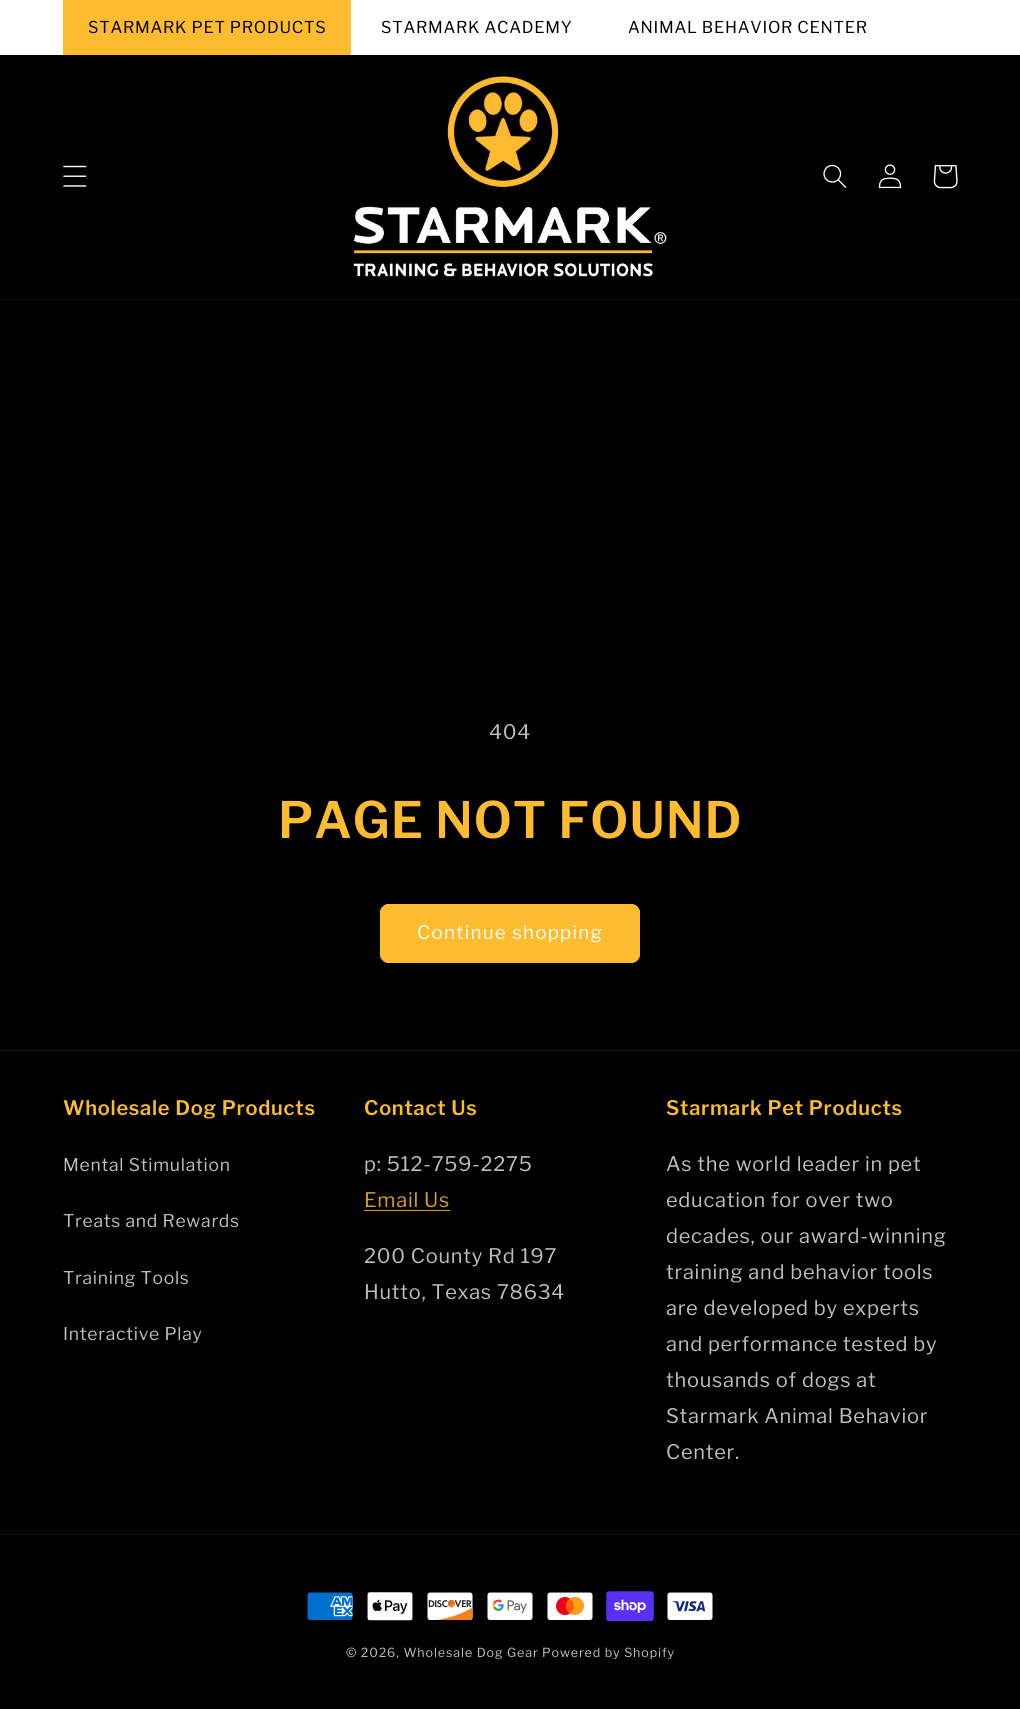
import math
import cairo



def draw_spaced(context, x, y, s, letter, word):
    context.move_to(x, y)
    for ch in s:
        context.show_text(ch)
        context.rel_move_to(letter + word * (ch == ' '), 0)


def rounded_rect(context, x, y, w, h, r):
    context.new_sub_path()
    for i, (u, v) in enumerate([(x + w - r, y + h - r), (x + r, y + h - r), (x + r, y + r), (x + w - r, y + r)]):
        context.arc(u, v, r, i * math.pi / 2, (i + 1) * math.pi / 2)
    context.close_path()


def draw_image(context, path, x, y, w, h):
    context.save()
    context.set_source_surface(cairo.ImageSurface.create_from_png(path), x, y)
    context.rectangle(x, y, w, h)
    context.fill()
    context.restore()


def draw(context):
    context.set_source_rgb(0, 0, 0)
    context.paint()
    context.set_source_rgb(1, 1, 1)
    context.rectangle(0, 0, 1020, 55)
    context.fill()
    context.set_source_rgb(253 / 255, 187 / 255, 48 / 255)
    context.rectangle(63, 0, 288, 55)
    context.fill()
    context.set_source_rgb(20 / 255, 20 / 255, 20 / 255)
    context.rectangle(0, 299, 1020, 1)
    context.fill()
    draw_image(context, "images/1.png", 63, 165, 24, 22)
    draw_image(context, "images/2.png", 353, 76, 314, 201)
    draw_image(context, "images/3.png", 823, 164, 24, 24)
    draw_image(context, "images/4.png", 878, 164, 24, 25)
    draw_image(context, "images/5.png", 933, 165, 25, 24)
    context.set_source_rgb(253 / 255, 187 / 255, 48 / 255)
    rounded_rect(context, 380, 904, 260, 59, 9)
    context.fill()
    rounded_rect(context, 380.5, 904.5, 259, 58, 8.5)
    context.set_line_width(1)
    context.stroke()
    context.set_source_rgb(20 / 255, 20 / 255, 20 / 255)
    context.rectangle(0, 1050, 1020, 1)
    context.fill()
    context.set_source_rgb(215 / 255, 159 / 255, 41 / 255)
    context.rectangle(364, 1210, 86, 1)
    context.fill()
    context.set_source_rgb(20 / 255, 20 / 255, 20 / 255)
    context.rectangle(0, 1534, 1020, 1)
    context.fill()
    draw_image(context, "images/6.png", 307, 1592, 46, 28)
    draw_image(context, "images/7.png", 367, 1592, 46, 29)
    draw_image(context, "images/8.png", 427, 1592, 46, 28)
    draw_image(context, "images/9.png", 487, 1592, 46, 28)
    draw_image(context, "images/10.png", 547, 1592, 46, 28)
    draw_image(context, "images/11.png", 606, 1591, 48, 30)
    draw_image(context, "images/12.png", 667, 1592, 46, 28)
    context.select_font_face("Libre Franklin")
    context.set_font_size(16.25)
    context.set_source_rgb(0, 0, 0)
    draw_spaced(context, 88, 33, "STARMARK PET PRODUCTS", 0.75, 0)
    draw_spaced(context, 381, 33, "STARMARK ACADEMY", 0.75, 0)
    draw_spaced(context, 628, 33, "ANIMAL BEHAVIOR CENTER", 0.75, 0)
    context.set_font_size(20)
    context.set_source_rgb(191 / 255, 191 / 255, 191 / 255)
    draw_spaced(context, 489, 739, "404", 0.75, 0)
    context.select_font_face("Libre Franklin SemiBold")
    context.set_font_size(50)
    context.set_source_rgb(253 / 255, 187 / 255, 48 / 255)
    draw_spaced(context, 278, 838, "PAGE NOT FOUND", 0.75, 0)
    context.select_font_face("Libre Franklin")
    context.set_font_size(18.75)
    context.set_source_rgb(1, 1, 1)
    draw_spaced(context, 417, 939, "Continue shopping", 1.25, 0)
    context.select_font_face("Libre Franklin SemiBold")
    context.set_font_size(20)
    context.set_source_rgb(253 / 255, 187 / 255, 48 / 255)
    draw_spaced(context, 63, 1115, "Wholesale Dog Products", 0.75, 0)
    context.select_font_face("Libre Franklin")
    context.set_font_size(17.5)
    context.set_source_rgb(191 / 255, 191 / 255, 191 / 255)
    draw_spaced(context, 63, 1171, "Mental Stimulation", 0.75, 0)
    draw_spaced(context, 63, 1227, "Treats and Rewards", 0.75, 0)
    draw_spaced(context, 63, 1284, "Training Tools", 0.75, 0)
    draw_spaced(context, 63, 1340, "Interactive Play", 0.75, 0)
    context.select_font_face("Libre Franklin SemiBold")
    context.set_font_size(20)
    context.set_source_rgb(253 / 255, 187 / 255, 48 / 255)
    draw_spaced(context, 364, 1115, "Contact Us", 0.75, 0)
    context.select_font_face("Libre Franklin")
    context.set_source_rgb(191 / 255, 191 / 255, 191 / 255)
    draw_spaced(context, 364, 1171, "p: 512-759-2275", 0.75, 0)
    context.set_source_rgb(215 / 255, 159 / 255, 41 / 255)
    draw_spaced(context, 364, 1207, "Email Us", 0.75, 0)
    context.set_source_rgb(191 / 255, 191 / 255, 191 / 255)
    draw_spaced(context, 364, 1263, "200 County Rd 197", 0.75, 0)
    draw_spaced(context, 364, 1299, "Hutto, Texas 78634", 0.75, 0)
    context.select_font_face("Libre Franklin SemiBold")
    context.set_source_rgb(253 / 255, 187 / 255, 48 / 255)
    draw_spaced(context, 666, 1115, "Starmark Pet Products", 0.75, 0)
    context.select_font_face("Libre Franklin")
    context.set_source_rgb(191 / 255, 191 / 255, 191 / 255)
    draw_spaced(context, 666, 1171, "As the world leader in pet", 0.75, 0)
    draw_spaced(context, 666, 1207, "education for over two", 0.75, 0)
    draw_spaced(context, 666, 1243, "decades, our award-winning", 0.75, 0)
    draw_spaced(context, 666, 1279, "training and behavior tools", 0.75, 0)
    draw_spaced(context, 666, 1315, "are developed by experts", 0.75, 0)
    draw_spaced(context, 666, 1351, "and performance tested by", 0.75, 0)
    draw_spaced(context, 666, 1387, "thousands of dogs at", 0.75, 0)
    draw_spaced(context, 666, 1423, "Starmark Animal Behavior", 0.75, 0)
    draw_spaced(context, 666, 1459, "Center.", 0.75, 0)
    context.set_font_size(12.5)
    draw_spaced(context, 346, 1657, "© 2026, Wholesale Dog Gear", 0.9, 0)
    draw_spaced(context, 542, 1657, "Powered by Shopify", 0.9, 0)


surface = cairo.ImageSurface(cairo.Format.RGB24, 1020, 1709)
context = cairo.Context(surface)
options = cairo.FontOptions()
options.set_hint_metrics(cairo.HintMetrics.OFF)
options.set_hint_style(cairo.HintStyle.NONE)
context.set_font_options(options)
context.set_miter_limit(4)
draw(context)
surface.write_to_png("out.png")
